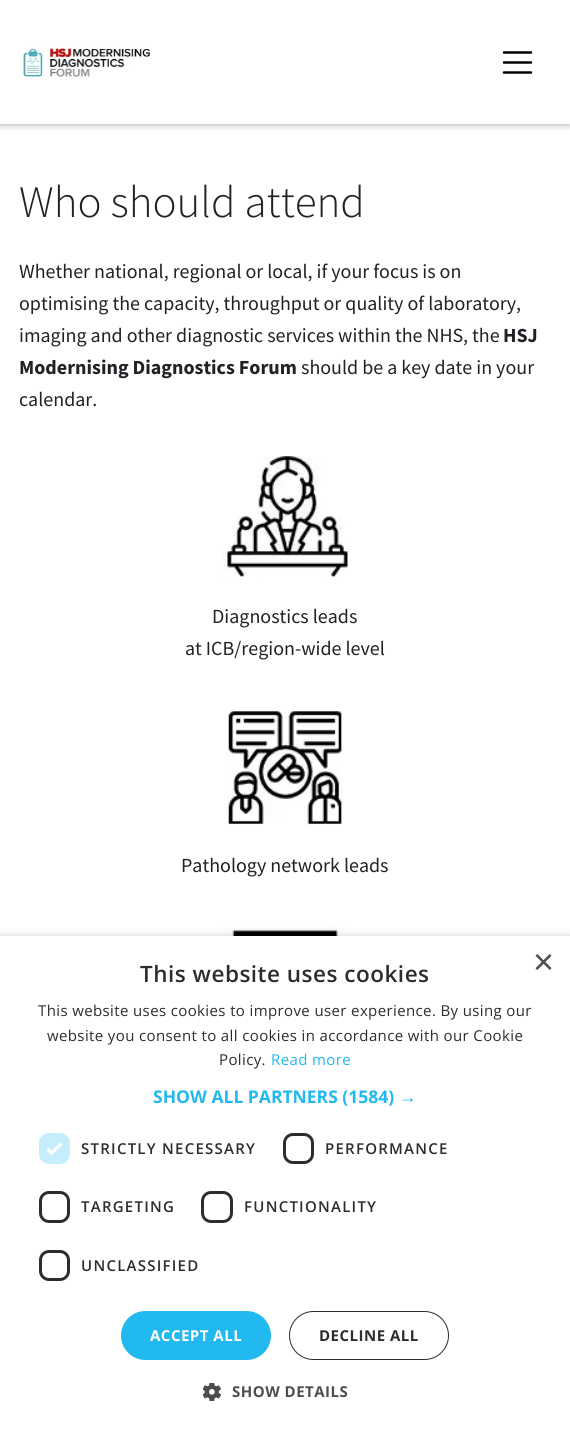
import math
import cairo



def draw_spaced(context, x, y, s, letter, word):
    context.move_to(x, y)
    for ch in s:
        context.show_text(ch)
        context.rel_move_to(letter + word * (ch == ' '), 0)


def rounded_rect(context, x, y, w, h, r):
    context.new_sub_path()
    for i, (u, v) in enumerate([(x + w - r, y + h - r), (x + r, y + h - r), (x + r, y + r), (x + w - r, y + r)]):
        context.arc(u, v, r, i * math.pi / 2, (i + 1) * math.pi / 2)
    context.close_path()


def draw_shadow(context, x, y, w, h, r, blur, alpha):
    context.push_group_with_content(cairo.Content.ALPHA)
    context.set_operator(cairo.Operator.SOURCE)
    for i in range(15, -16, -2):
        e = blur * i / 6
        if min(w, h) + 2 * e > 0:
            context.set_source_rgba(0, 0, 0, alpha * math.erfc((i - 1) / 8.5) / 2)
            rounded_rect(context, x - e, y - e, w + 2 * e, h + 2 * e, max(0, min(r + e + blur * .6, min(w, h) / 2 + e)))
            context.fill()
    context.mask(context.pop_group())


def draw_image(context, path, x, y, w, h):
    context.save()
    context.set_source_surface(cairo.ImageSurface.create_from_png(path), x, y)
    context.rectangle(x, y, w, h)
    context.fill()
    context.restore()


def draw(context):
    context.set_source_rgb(1, 1, 1)
    context.paint()
    context.set_source_rgb(0, 0, 0)
    draw_shadow(context, 0, 0, 570, 124, 0, 4, 0.4)
    context.set_source_rgb(1, 1, 1)
    context.rectangle(0, 0, 570, 124)
    context.fill()
    draw_image(context, "images/1.png", 19, 41, 132, 38)
    context.new_path()
    context.move_to(504, 52.5)
    context.line_to(531, 52.5)
    context.move_to(504, 62.5)
    context.line_to(531, 62.5)
    context.move_to(504, 72.5)
    context.line_to(531, 72.5)
    context.set_source_rgb(0, 0, 0)
    context.set_line_width(2.5)
    context.set_line_cap(cairo.LineCap.ROUND)
    context.stroke()
    draw_image(context, "images/2.png", 222, 456, 126, 121)
    draw_image(context, "images/3.png", 227, 710, 116, 115)
    draw_image(context, "images/4.png", 222, 926, 126, 10)
    context.set_source_rgb(0, 0, 0)
    draw_shadow(context, 1, 939, 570, 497, 0, 5, 0.35)
    context.set_source_rgb(1, 1, 1)
    context.rectangle(0, 936, 570, 497)
    context.fill()
    context.set_source_rgb(198 / 255, 237 / 255, 251 / 255)
    rounded_rect(context, 39, 1133, 31, 31, 10)
    context.fill()
    context.new_path()
    context.move_to(47.5, 1149)
    context.line_to(51.5, 1153)
    context.line_to(61.5, 1143.5)
    context.set_source_rgb(1, 1, 1)
    context.set_line_width(3.3)
    context.set_line_cap(cairo.LineCap.BUTT)
    context.stroke()
    rounded_rect(context, 284.5, 1134.5, 28, 28, 8.5)
    context.set_source_rgb(45 / 255, 45 / 255, 45 / 255)
    context.set_line_width(3)
    context.stroke()
    rounded_rect(context, 40.5, 1192.5, 28, 29, 8.5)
    context.stroke()
    rounded_rect(context, 202.5, 1192.5, 29, 29, 8.5)
    context.stroke()
    rounded_rect(context, 40.5, 1251.5, 28, 28, 8.5)
    context.stroke()
    context.set_source_rgb(34 / 255, 184 / 255, 240 / 255)
    rounded_rect(context, 121, 1311, 150, 49, 24.5)
    context.fill()
    rounded_rect(context, 289.5, 1311.5, 159, 48, 24)
    context.set_source_rgb(45 / 255, 45 / 255, 45 / 255)
    context.set_line_width(1)
    context.stroke()
    draw_image(context, "images/5.png", 203, 1383, 18, 18)
    context.select_font_face("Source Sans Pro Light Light")
    context.set_font_size(45)
    context.set_source_rgb(35 / 255, 33 / 255, 38 / 255)
    context.move_to(19, 217)
    context.show_text("Who should attend")
    context.select_font_face("Source Sans Pro")
    context.set_font_size(20)
    context.move_to(19, 278)
    context.show_text("Whether national, regional or local, if your focus is on")
    context.move_to(19, 310)
    context.show_text("optimising the capacity, throughput or quality of laboratory,")
    context.move_to(19, 342)
    context.show_text("imaging and other diagnostic services within the NHS, the")
    context.select_font_face("Source Sans Pro", cairo.FontSlant.NORMAL, cairo.FontWeight.BOLD)
    context.move_to(503, 342)
    context.show_text("HSJ")
    context.move_to(19, 374)
    context.show_text("Modernising Diagnostics Forum")
    context.select_font_face("Source Sans Pro")
    context.move_to(301, 374)
    context.show_text("should be a key date in your")
    context.move_to(19, 406)
    context.show_text("calendar.")
    context.move_to(212, 623)
    context.show_text("Diagnostics leads")
    context.move_to(185, 655)
    context.show_text("at ICB/region-wide level")
    context.move_to(181, 872)
    context.show_text("Pathology network leads")
    context.select_font_face("Liberation Sans")
    context.set_font_size(36)
    context.set_source_rgb(77 / 255, 77 / 255, 77 / 255)
    context.move_to(533, 974)
    context.show_text("×")
    context.select_font_face("Open Sans SemiBold")
    context.set_font_size(22.5)
    context.set_source_rgb(45 / 255, 45 / 255, 45 / 255)
    draw_spaced(context, 140, 982, "This website uses cookies", 0.5, 0)
    context.select_font_face("Open Sans")
    context.set_font_size(15)
    draw_spaced(context, 38, 1016, "This website uses cookies to improve user experience. By using our", 0.38, 0)
    draw_spaced(context, 47, 1041, "website you consent to all cookies in accordance with our Cookie", 0.38, 0)
    draw_spaced(context, 219, 1065, "Policy.", 0.38, 0)
    context.set_source_rgb(34 / 255, 184 / 255, 240 / 255)
    draw_spaced(context, 271, 1065, "Read more", 0.38, 0)
    context.select_font_face("Open Sans", cairo.FontSlant.NORMAL, cairo.FontWeight.BOLD)
    context.set_font_size(17.5)
    context.move_to(153, 1103)
    context.show_text("SHOW ALL PARTNERS (1584)")
    context.select_font_face("Liberation Sans", cairo.FontSlant.NORMAL, cairo.FontWeight.BOLD)
    context.move_to(399, 1103)
    context.show_text("→")
    context.select_font_face("Open Sans SemiBold")
    context.set_font_size(15)
    context.set_source_rgb(45 / 255, 45 / 255, 45 / 255)
    draw_spaced(context, 81, 1154, "STRICTLY NECESSARY", 1.25, 0)
    draw_spaced(context, 325, 1154, "PERFORMANCE", 1.25, 0)
    draw_spaced(context, 81, 1212, "TARGETING", 1.25, 0)
    draw_spaced(context, 244, 1212, "FUNCTIONALITY", 1.25, 0)
    draw_spaced(context, 81, 1271, "UNCLASSIFIED", 1.25, 0)
    context.select_font_face("Open Sans", cairo.FontSlant.NORMAL, cairo.FontWeight.BOLD)
    context.set_source_rgb(1, 1, 1)
    draw_spaced(context, 150, 1341, "ACCEPT ALL", 0.5, 0)
    context.set_source_rgb(45 / 255, 45 / 255, 45 / 255)
    draw_spaced(context, 319, 1341, "DECLINE ALL", 0.5, 0)
    context.set_source_rgb(77 / 255, 77 / 255, 77 / 255)
    draw_spaced(context, 232, 1397, "SHOW DETAILS", 0.5, 0)


surface = cairo.ImageSurface(cairo.Format.RGB24, 570, 1433)
context = cairo.Context(surface)
options = cairo.FontOptions()
options.set_hint_metrics(cairo.HintMetrics.OFF)
options.set_hint_style(cairo.HintStyle.NONE)
context.set_font_options(options)
context.set_miter_limit(4)
draw(context)
surface.write_to_png("out.png")
